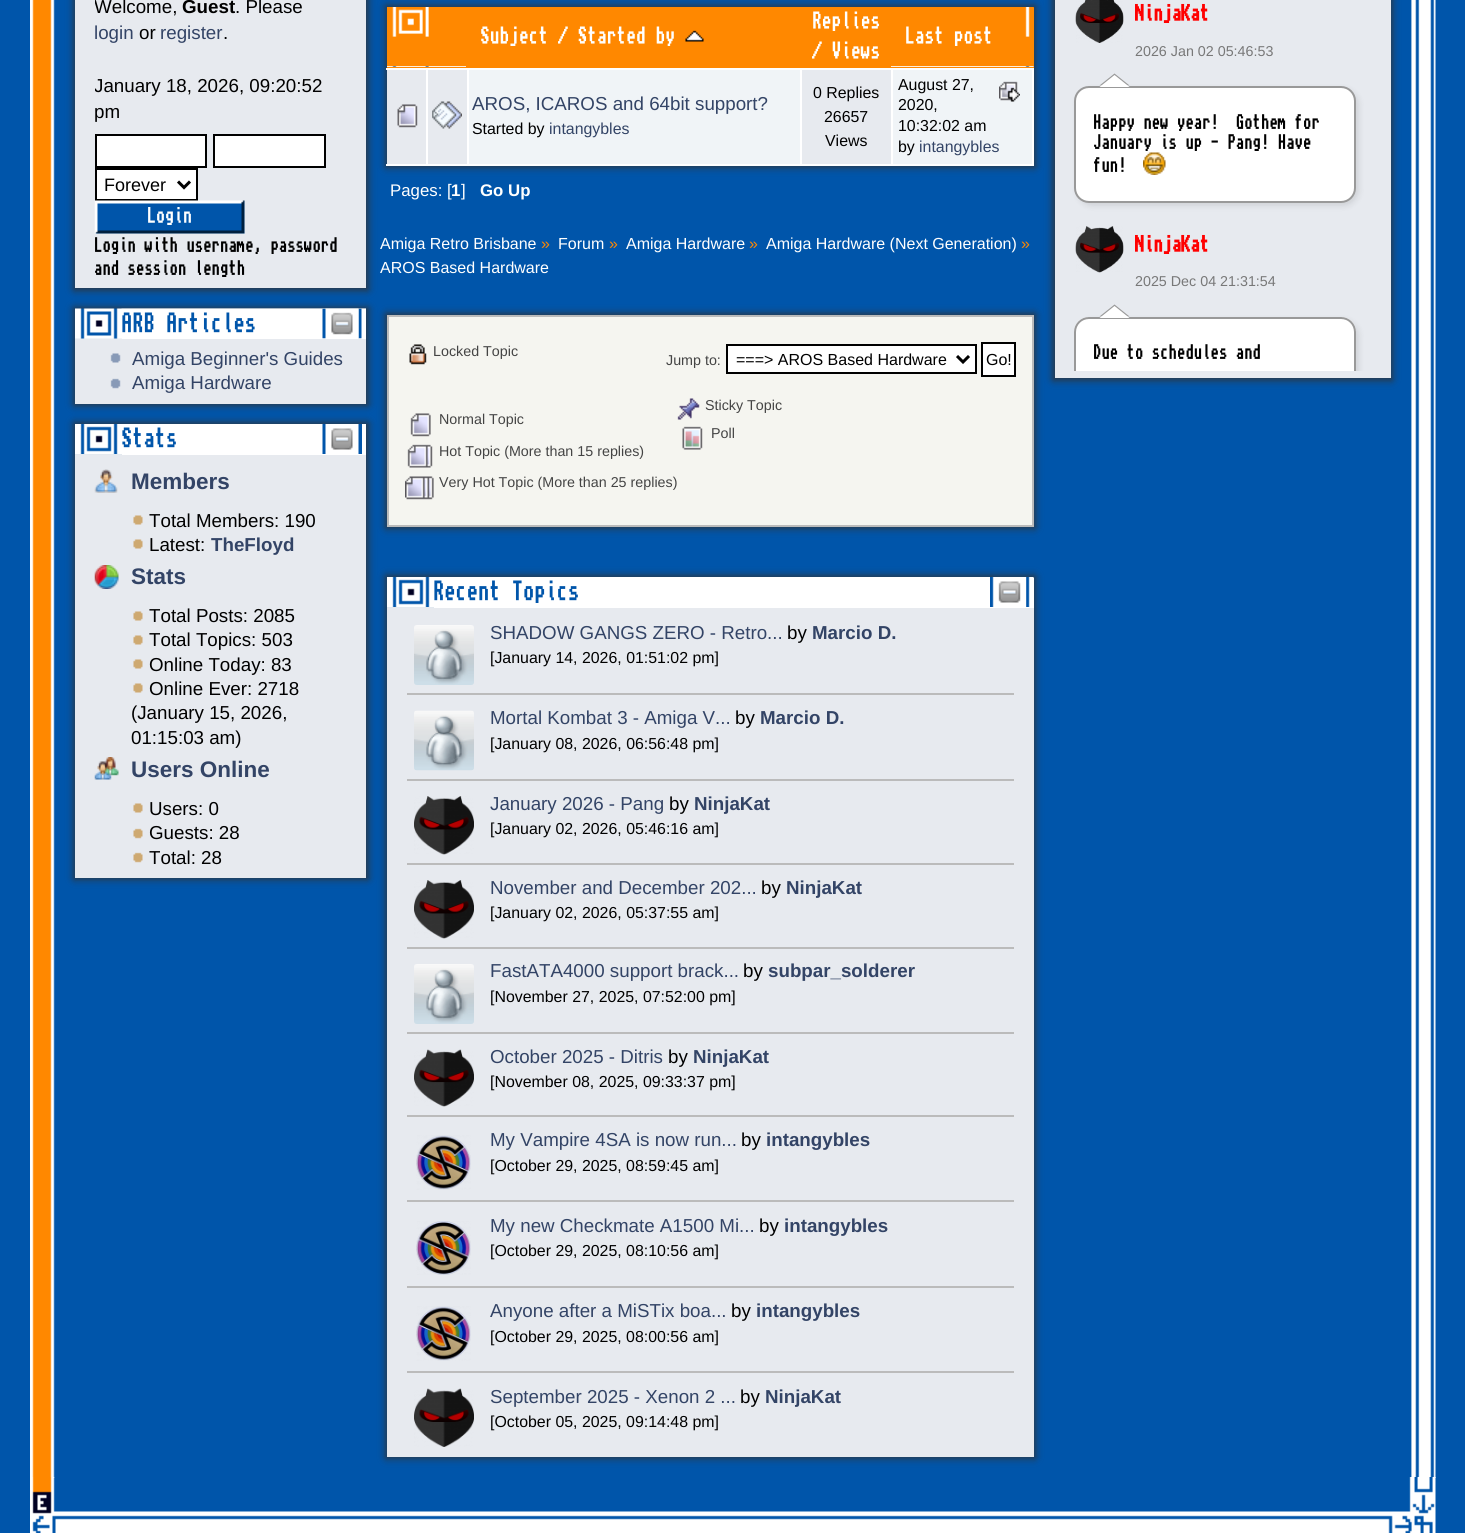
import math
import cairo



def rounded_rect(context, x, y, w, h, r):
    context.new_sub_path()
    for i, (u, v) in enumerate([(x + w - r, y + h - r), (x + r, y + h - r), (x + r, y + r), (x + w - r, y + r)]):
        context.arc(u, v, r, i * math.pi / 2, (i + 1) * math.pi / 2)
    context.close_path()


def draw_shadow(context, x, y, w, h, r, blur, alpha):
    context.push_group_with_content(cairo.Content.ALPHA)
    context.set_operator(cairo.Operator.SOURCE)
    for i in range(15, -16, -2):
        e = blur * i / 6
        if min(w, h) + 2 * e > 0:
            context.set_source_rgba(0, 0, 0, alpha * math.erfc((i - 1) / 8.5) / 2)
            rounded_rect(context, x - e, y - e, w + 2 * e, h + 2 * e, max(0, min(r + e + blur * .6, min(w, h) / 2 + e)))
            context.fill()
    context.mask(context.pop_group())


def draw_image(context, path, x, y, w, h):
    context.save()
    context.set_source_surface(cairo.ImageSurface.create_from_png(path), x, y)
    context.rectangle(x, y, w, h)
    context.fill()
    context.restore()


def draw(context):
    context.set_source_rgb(0, 85 / 255, 170 / 255)
    context.paint()
    draw_image(context, "images/1.png", 30, 0, 25, 1478)
    draw_image(context, "images/2.png", 1411, 0, 25, 1478)
    context.set_source_rgb(51 / 255, 51 / 255, 51 / 255)
    draw_shadow(context, 74, -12, 294, 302, 0, 4, 1)
    context.set_source_rgb(231 / 255, 234 / 255, 239 / 255)
    context.rectangle(75, 0, 291, 288)
    context.fill()
    context.set_source_rgb(1, 1, 1)
    context.rectangle(96, 135, 110, 32)
    context.fill_preserve()
    context.set_source_rgb(0, 0, 0)
    context.stroke()
    context.set_source_rgb(1, 1, 1)
    context.rectangle(214, 135, 111, 32)
    context.fill_preserve()
    context.set_source_rgb(0, 0, 0)
    context.stroke()
    context.set_source_rgb(1, 1, 1)
    context.rectangle(96, 169, 101, 31)
    context.fill_preserve()
    context.set_source_rgb(0, 0, 0)
    context.stroke()
    context.new_path()
    context.move_to(178, 181.5)
    context.line_to(184, 187.5)
    context.line_to(190, 181.5)
    context.set_line_width(3)
    context.stroke()
    context.set_source_rgb(205 / 255, 231 / 255, 1)
    context.rectangle(95, 201, 150, 33)
    context.fill()
    draw_image(context, "images/3.png", 94, 200, 151, 34)
    context.set_source_rgb(51 / 255, 51 / 255, 51 / 255)
    draw_shadow(context, 74, 308, 294, 97, 0, 4, 1)
    context.set_source_rgb(227 / 255, 233 / 255, 239 / 255)
    context.rectangle(75, 338, 47, 1)
    context.fill()
    draw_image(context, "images/4.png", 75, 308, 291, 31)
    context.set_source_rgb(1, 1, 1)
    context.rectangle(122, 338, 244, 1)
    context.fill()
    draw_image(context, "images/5.png", 121, 308, 245, 31)
    draw_image(context, "images/6.png", 322, 308, 37, 31)
    context.set_source_rgb(231 / 255, 234 / 255, 239 / 255)
    context.rectangle(75, 339, 291, 65)
    context.fill()
    draw_image(context, "images/7.png", 110, 353, 11, 10)
    draw_image(context, "images/8.png", 110, 378, 11, 11)
    context.set_source_rgb(51 / 255, 51 / 255, 51 / 255)
    draw_shadow(context, 74, 423, 294, 456, 0, 4, 1)
    context.set_source_rgb(227 / 255, 233 / 255, 239 / 255)
    context.rectangle(75, 454, 47, 1)
    context.fill()
    draw_image(context, "images/9.png", 75, 424, 291, 30)
    context.set_source_rgb(1, 1, 1)
    context.rectangle(122, 454, 244, 1)
    context.fill()
    context.set_source_rgb(0, 85 / 255, 170 / 255)
    context.rectangle(358, 424, 4, 30)
    context.fill()
    draw_image(context, "images/10.png", 322, 424, 37, 30)
    context.set_source_rgb(231 / 255, 234 / 255, 239 / 255)
    context.rectangle(75, 455, 291, 423)
    context.fill()
    draw_image(context, "images/11.png", 94, 469, 24, 24)
    draw_image(context, "images/12.png", 133, 515, 10, 10)
    draw_image(context, "images/12.png", 133, 539, 10, 10)
    draw_image(context, "images/13.png", 94, 565, 25, 24)
    draw_image(context, "images/12.png", 133, 611, 10, 10)
    draw_image(context, "images/12.png", 133, 635, 10, 10)
    draw_image(context, "images/12.png", 133, 659, 10, 10)
    draw_image(context, "images/12.png", 133, 683, 10, 10)
    draw_image(context, "images/14.png", 94, 757, 25, 23)
    draw_image(context, "images/12.png", 133, 803, 10, 10)
    draw_image(context, "images/15.png", 133, 828, 10, 11)
    draw_image(context, "images/15.png", 133, 852, 10, 11)
    context.set_source_rgb(51 / 255, 51 / 255, 51 / 255)
    draw_shadow(context, 386, 6, 649, 161, 0, 4, 1)
    context.set_source_rgb(1, 1, 1)
    context.rectangle(386, 68, 648, 2)
    context.fill()
    context.set_source_rgb(1, 136 / 255, 0)
    context.rectangle(387, 8, 647, 60)
    context.fill()
    draw_image(context, "images/16.png", 387, 7, 79, 60)
    context.rectangle(466, 7, 425, 1)
    context.fill()
    draw_image(context, "images/17.png", 685, 30, 19, 12)
    draw_image(context, "images/18.png", 891, 7, 143, 60)
    context.set_source_rgb(231 / 255, 234 / 255, 239 / 255)
    context.rectangle(387, 70, 39, 94)
    context.fill()
    context.set_source_rgb(1, 1, 1)
    context.rectangle(1032, 68, 2, 97)
    context.fill()
    context.rectangle(891, 164, 143, 2)
    context.fill()
    context.rectangle(891, 68, 2, 97)
    context.fill()
    context.rectangle(800, 164, 93, 2)
    context.fill()
    context.rectangle(800, 68, 2, 97)
    context.fill()
    context.rectangle(467, 164, 334, 2)
    context.fill()
    context.rectangle(467, 68, 2, 97)
    context.fill()
    context.rectangle(426, 164, 42, 2)
    context.fill()
    context.rectangle(426, 68, 2, 97)
    context.fill()
    context.rectangle(386, 164, 42, 2)
    context.fill()
    draw_image(context, "images/19.png", 397, 104, 21, 24)
    context.set_source_rgb(231 / 255, 234 / 255, 239 / 255)
    context.rectangle(428, 70, 39, 94)
    context.fill()
    draw_image(context, "images/20.png", 432, 101, 30, 28)
    context.set_source_rgb(240 / 255, 244 / 255, 247 / 255)
    context.rectangle(469, 70, 331, 94)
    context.fill()
    context.set_source_rgb(231 / 255, 234 / 255, 239 / 255)
    context.rectangle(802, 70, 89, 94)
    context.fill()
    context.set_source_rgb(240 / 255, 244 / 255, 247 / 255)
    context.rectangle(893, 70, 139, 94)
    context.fill()
    draw_image(context, "images/21.png", 999, 81, 21, 21)
    context.set_source_rgb(51 / 255, 51 / 255, 51 / 255)
    draw_shadow(context, 386, 314, 649, 214, 0, 4, 1)
    context.set_source_rgb(245 / 255, 245 / 255, 240 / 255)
    context.rectangle(388, 316, 645, 210)
    context.fill_preserve()
    context.set_source_rgb(187 / 255, 187 / 255, 187 / 255)
    context.set_line_width(2)
    context.stroke()
    draw_image(context, "images/22.png", 409, 344, 18, 21)
    draw_image(context, "images/23.png", 677, 398, 23, 22)
    draw_image(context, "images/24.png", 682, 426, 21, 24)
    context.set_source_rgb(1, 1, 1)
    context.rectangle(727, 345, 249, 28)
    context.fill_preserve()
    context.set_source_rgb(0, 0, 0)
    context.stroke()
    context.new_path()
    context.move_to(957, 356)
    context.line_to(963, 362)
    context.line_to(969, 356)
    context.set_line_width(3)
    context.stroke()
    context.set_source_rgb(1, 1, 1)
    context.rectangle(982, 343, 33, 33)
    context.fill_preserve()
    context.set_source_rgb(0, 0, 0)
    context.set_line_width(2)
    context.stroke()
    draw_image(context, "images/25.png", 410, 413, 21, 24)
    draw_image(context, "images/26.png", 407, 444, 26, 24)
    draw_image(context, "images/27.png", 405, 476, 29, 24)
    context.set_source_rgb(51 / 255, 51 / 255, 51 / 255)
    draw_shadow(context, 386, 576, 649, 882, 0, 4, 1)
    context.set_source_rgb(227 / 255, 233 / 255, 239 / 255)
    context.rectangle(387, 607, 47, 1)
    context.fill()
    draw_image(context, "images/28.png", 387, 577, 647, 30)
    context.set_source_rgb(1, 1, 1)
    context.rectangle(434, 578, 600, 30)
    context.fill()
    draw_image(context, "images/29.png", 1026, 577, 8, 30)
    draw_image(context, "images/30.png", 990, 577, 36, 30)
    context.set_source_rgb(231 / 255, 234 / 255, 239 / 255)
    context.rectangle(387, 608, 647, 849)
    context.fill()
    context.set_source_rgb(187 / 255, 187 / 255, 187 / 255)
    context.rectangle(407, 693, 607, 2)
    context.fill()
    draw_image(context, "images/31.png", 414, 625, 60, 60)
    context.rectangle(407, 779, 607, 2)
    context.fill()
    draw_image(context, "images/32.png", 414, 710, 60, 61)
    context.rectangle(407, 863, 607, 2)
    context.fill()
    draw_image(context, "images/33.png", 414, 796, 60, 59)
    context.rectangle(407, 947, 607, 2)
    context.fill()
    draw_image(context, "images/34.png", 414, 880, 60, 59)
    context.rectangle(407, 1032, 607, 2)
    context.fill()
    draw_image(context, "images/31.png", 414, 964, 60, 60)
    context.rectangle(407, 1115, 607, 2)
    context.fill()
    draw_image(context, "images/35.png", 414, 1049, 60, 58)
    context.rectangle(407, 1200, 607, 2)
    context.fill()
    draw_image(context, "images/36.png", 416, 1135, 55, 55)
    context.rectangle(407, 1286, 607, 2)
    context.fill()
    draw_image(context, "images/37.png", 416, 1221, 55, 54)
    context.rectangle(407, 1371, 607, 2)
    context.fill()
    draw_image(context, "images/38.png", 416, 1306, 55, 55)
    draw_image(context, "images/39.png", 414, 1388, 60, 59)
    context.set_source_rgb(51 / 255, 51 / 255, 51 / 255)
    draw_shadow(context, 1053, -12, 339, 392, 0, 4, 1)
    context.set_source_rgb(231 / 255, 234 / 255, 239 / 255)
    context.rectangle(1055, 0, 336, 378)
    context.fill()
    draw_image(context, "images/40.png", 1075, 0, 49, 43)
    context.set_source_rgb(0, 0, 0)
    draw_shadow(context, 1077, 89, 282, 117, 15, 3, 0.1)
    context.set_source_rgb(1, 1, 1)
    rounded_rect(context, 1075, 87, 280, 115, 14)
    context.fill_preserve()
    context.set_source_rgb(153 / 255, 153 / 255, 153 / 255)
    context.stroke()
    context.new_path()
    context.move_to(1129.5, 85.5)
    context.line_to(1099.5, 85.5)
    context.line_to(1114.5, 73.5)
    context.close_path()
    context.fill()
    context.set_source_rgb(1, 1, 1)
    context.new_path()
    context.move_to(1129.5, 87)
    context.line_to(1099.5, 87)
    context.line_to(1114.5, 75)
    context.close_path()
    context.fill()
    draw_image(context, "images/41.png", 1143, 152, 23, 23)
    draw_image(context, "images/42.png", 1075, 226, 49, 47)
    context.save()
    context.rectangle(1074, 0, 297, 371)
    context.clip()
    context.set_source_rgb(0, 0, 0)
    draw_shadow(context, 1077, 320, 282, 174, 15, 3, 0.1)
    context.restore()
    context.new_path()
    context.move_to(1089, 317)
    context.line_to(1341, 317)
    context.curve_to(1349.5, 317, 1356, 323.5, 1356, 332)
    context.line_to(1356, 371)
    context.line_to(1074, 371)
    context.line_to(1074, 332)
    context.curve_to(1074, 323.5, 1080.5, 317, 1089, 317)
    context.close_path()
    context.fill()
    context.save()
    context.rectangle(1074, 0, 297, 371)
    context.clip()
    rounded_rect(context, 1075, 318, 280, 172, 14)
    context.set_source_rgb(153 / 255, 153 / 255, 153 / 255)
    context.stroke()
    context.restore()
    context.set_source_rgb(153 / 255, 153 / 255, 153 / 255)
    context.new_path()
    context.move_to(1129.5, 316.5)
    context.line_to(1099.5, 316.5)
    context.line_to(1114.5, 304.5)
    context.close_path()
    context.fill()
    context.set_source_rgb(1, 1, 1)
    context.new_path()
    context.move_to(1129.5, 318)
    context.line_to(1099.5, 318)
    context.line_to(1114.5, 306)
    context.close_path()
    context.fill()
    draw_image(context, "images/43.png", 30, 1477, 30, 56)
    draw_image(context, "images/44.png", 60, 1477, 1376, 56)
    context.save()
    context.rectangle(95, 0, 252, 281)
    context.clip()
    context.select_font_face("Liberation Sans")
    context.set_font_size(18.75)
    context.set_source_rgb(0, 0, 0)
    context.move_to(94, 13)
    context.show_text("Welcome,")
    context.restore()
    context.select_font_face("Liberation Sans", cairo.FontSlant.NORMAL, cairo.FontWeight.BOLD)
    context.set_font_size(18.75)
    context.set_source_rgb(0, 0, 0)
    context.move_to(182, 13)
    context.show_text("Guest")
    context.select_font_face("Liberation Sans")
    context.move_to(235, 13)
    context.show_text(". Please")
    context.set_source_rgb(51 / 255, 68 / 255, 102 / 255)
    context.move_to(94, 39)
    context.show_text("login")
    context.set_source_rgb(0, 0, 0)
    context.move_to(139, 39)
    context.show_text("or")
    context.set_source_rgb(51 / 255, 68 / 255, 102 / 255)
    context.move_to(160, 39)
    context.show_text("register")
    context.set_source_rgb(0, 0, 0)
    context.move_to(223, 39)
    context.show_text(".")
    context.save()
    context.rectangle(95, 0, 252, 281)
    context.clip()
    context.move_to(94, 92)
    context.show_text("January 18, 2026, 09:20:52")
    context.restore()
    context.move_to(94, 118)
    context.show_text("pm")
    context.set_font_size(18)
    context.move_to(104, 191)
    context.show_text("Forever")
    context.select_font_face("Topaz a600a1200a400")
    context.set_source_rgb(1, 1, 1)
    context.move_to(147, 225)
    context.show_text("Login")
    context.save()
    context.rectangle(95, 0, 252, 281)
    context.clip()
    context.set_font_size(16.8)
    context.set_source_rgb(0, 0, 0)
    context.move_to(94, 254)
    context.show_text("Login with username, password")
    context.restore()
    context.set_font_size(16.8)
    context.set_source_rgb(0, 0, 0)
    context.move_to(94, 277)
    context.show_text("and session length")
    context.set_font_size(22.5)
    context.set_source_rgb(0, 85 / 255, 170 / 255)
    context.move_to(121, 335)
    context.show_text("ARB Articles")
    context.select_font_face("Liberation Sans")
    context.set_font_size(18.75)
    context.set_source_rgb(51 / 255, 68 / 255, 102 / 255)
    context.move_to(132, 365)
    context.show_text("Amiga Beginner's Guides")
    context.move_to(132, 389)
    context.show_text("Amiga Hardware")
    context.select_font_face("Topaz a600a1200a400")
    context.set_font_size(22.5)
    context.set_source_rgb(0, 85 / 255, 170 / 255)
    context.move_to(121, 450)
    context.show_text("Stats")
    context.select_font_face("Liberation Sans", cairo.FontSlant.NORMAL, cairo.FontWeight.BOLD)
    context.set_source_rgb(51 / 255, 68 / 255, 102 / 255)
    context.move_to(131, 489)
    context.show_text("Members")
    context.select_font_face("Liberation Sans")
    context.set_font_size(18.75)
    context.set_source_rgb(0, 0, 0)
    context.move_to(149, 527)
    context.show_text("Total Members: 190")
    context.move_to(149, 551)
    context.show_text("Latest:")
    context.select_font_face("Liberation Sans", cairo.FontSlant.NORMAL, cairo.FontWeight.BOLD)
    context.set_source_rgb(51 / 255, 68 / 255, 102 / 255)
    context.move_to(211, 551)
    context.show_text("TheFloyd")
    context.set_font_size(22.5)
    context.move_to(131, 584)
    context.show_text("Stats")
    context.select_font_face("Liberation Sans")
    context.set_font_size(18.75)
    context.set_source_rgb(0, 0, 0)
    context.move_to(149, 622)
    context.show_text("Total Posts: 2085")
    context.move_to(149, 646)
    context.show_text("Total Topics: 503")
    context.move_to(149, 671)
    context.show_text("Online Today: 83")
    context.move_to(149, 695)
    context.show_text("Online Ever: 2718")
    context.move_to(131, 719)
    context.show_text("(January 15, 2026,")
    context.move_to(131, 744)
    context.show_text("01:15:03 am)")
    context.select_font_face("Liberation Sans", cairo.FontSlant.NORMAL, cairo.FontWeight.BOLD)
    context.set_font_size(22.5)
    context.set_source_rgb(51 / 255, 68 / 255, 102 / 255)
    context.move_to(131, 777)
    context.show_text("Users Online")
    context.select_font_face("Liberation Sans")
    context.set_font_size(18.75)
    context.set_source_rgb(0, 0, 0)
    context.move_to(149, 815)
    context.show_text("Users: 0")
    context.move_to(149, 839)
    context.show_text("Guests: 28")
    context.move_to(149, 864)
    context.show_text("Total: 28")
    context.select_font_face("Topaz a600a1200a400")
    context.set_font_size(19.5)
    context.set_source_rgb(1, 1, 1)
    context.move_to(480, 46)
    context.show_text("Subject / Started by")
    context.move_to(812, 31)
    context.show_text("Replies")
    context.move_to(812, 61)
    context.show_text("/ Views")
    context.move_to(905, 46)
    context.show_text("Last post")
    context.select_font_face("Liberation Sans")
    context.set_font_size(18.75)
    context.set_source_rgb(51 / 255, 68 / 255, 102 / 255)
    context.move_to(472, 110)
    context.show_text("AROS, ICAROS and 64bit support?")
    context.set_font_size(15.9)
    context.set_source_rgb(0, 0, 0)
    context.move_to(472, 134)
    context.show_text("Started by")
    context.set_source_rgb(51 / 255, 68 / 255, 102 / 255)
    context.move_to(549, 134)
    context.show_text("intangybles")
    context.set_source_rgb(0, 0, 0)
    context.move_to(813, 98)
    context.show_text("0 Replies")
    context.move_to(824, 122)
    context.show_text("26657")
    context.move_to(825, 146)
    context.show_text("Views")
    context.move_to(898, 90)
    context.show_text("August 27,")
    context.move_to(898, 110)
    context.show_text("2020,")
    context.move_to(898, 131)
    context.show_text("10:32:02 am")
    context.move_to(898, 152)
    context.show_text("by")
    context.set_source_rgb(51 / 255, 68 / 255, 102 / 255)
    context.move_to(919, 152)
    context.show_text("intangybles")
    context.set_font_size(16.8)
    context.set_source_rgb(1, 1, 1)
    context.move_to(390, 196)
    context.show_text("Pages: [")
    context.select_font_face("Liberation Sans", cairo.FontSlant.NORMAL, cairo.FontWeight.BOLD)
    context.move_to(451, 196)
    context.show_text("1")
    context.select_font_face("Liberation Sans")
    context.move_to(461, 196)
    context.show_text("]")
    context.select_font_face("Liberation Sans", cairo.FontSlant.NORMAL, cairo.FontWeight.BOLD)
    context.move_to(480, 196)
    context.show_text("Go Up")
    context.select_font_face("Liberation Sans")
    context.set_font_size(16)
    context.move_to(380, 249)
    context.show_text("Amiga Retro Brisbane")
    context.set_source_rgb(1, 136 / 255, 0)
    context.move_to(541, 249)
    context.show_text("»")
    context.set_source_rgb(1, 1, 1)
    context.move_to(558, 249)
    context.show_text("Forum")
    context.set_source_rgb(1, 136 / 255, 0)
    context.move_to(609, 249)
    context.show_text("»")
    context.set_source_rgb(1, 1, 1)
    context.move_to(626, 249)
    context.show_text("Amiga Hardware")
    context.set_source_rgb(1, 136 / 255, 0)
    context.move_to(749, 249)
    context.show_text("»")
    context.set_source_rgb(1, 1, 1)
    context.move_to(766, 249)
    context.show_text("Amiga Hardware (Next Generation)")
    context.set_source_rgb(1, 136 / 255, 0)
    context.move_to(1021, 249)
    context.show_text("»")
    context.set_source_rgb(1, 1, 1)
    context.move_to(380, 273)
    context.show_text("AROS Based Hardware")
    context.set_font_size(14.3)
    context.set_source_rgb(68 / 255, 68 / 255, 68 / 255)
    context.move_to(433, 356)
    context.show_text("Locked Topic")
    context.move_to(705, 410)
    context.show_text("Sticky Topic")
    context.move_to(711, 438)
    context.show_text("Poll")
    context.move_to(666, 365)
    context.show_text("Jump to:")
    context.set_font_size(16)
    context.set_source_rgb(0, 0, 0)
    context.move_to(736, 365)
    context.show_text("===> AROS Based Hardware")
    context.move_to(986, 365)
    context.show_text("Go!")
    context.set_font_size(14.3)
    context.set_source_rgb(68 / 255, 68 / 255, 68 / 255)
    context.move_to(439, 424)
    context.show_text("Normal Topic")
    context.move_to(439, 456)
    context.show_text("Hot Topic (More than 15 replies)")
    context.move_to(439, 487)
    context.show_text("Very Hot Topic (More than 25 replies)")
    context.select_font_face("Topaz a600a1200a400")
    context.set_font_size(22.5)
    context.set_source_rgb(0, 85 / 255, 170 / 255)
    context.move_to(433, 603)
    context.show_text("Recent Topics")
    context.select_font_face("Liberation Sans")
    context.set_font_size(18.75)
    context.set_source_rgb(51 / 255, 68 / 255, 102 / 255)
    context.move_to(490, 639)
    context.show_text("SHADOW GANGS ZERO - Retro...")
    context.set_source_rgb(0, 0, 0)
    context.move_to(787, 639)
    context.show_text("by")
    context.select_font_face("Liberation Sans", cairo.FontSlant.NORMAL, cairo.FontWeight.BOLD)
    context.set_source_rgb(51 / 255, 68 / 255, 102 / 255)
    context.move_to(812, 639)
    context.show_text("Marcio D.")
    context.select_font_face("Liberation Sans")
    context.set_font_size(15.9)
    context.set_source_rgb(0, 0, 0)
    context.move_to(490, 663)
    context.show_text("[January 14, 2026, 01:51:02 pm]")
    context.set_font_size(18.75)
    context.set_source_rgb(51 / 255, 68 / 255, 102 / 255)
    context.move_to(490, 724)
    context.show_text("Mortal Kombat 3 - Amiga V...")
    context.set_source_rgb(0, 0, 0)
    context.move_to(735, 724)
    context.show_text("by")
    context.select_font_face("Liberation Sans", cairo.FontSlant.NORMAL, cairo.FontWeight.BOLD)
    context.set_source_rgb(51 / 255, 68 / 255, 102 / 255)
    context.move_to(760, 724)
    context.show_text("Marcio D.")
    context.select_font_face("Liberation Sans")
    context.set_font_size(15.9)
    context.set_source_rgb(0, 0, 0)
    context.move_to(490, 749)
    context.show_text("[January 08, 2026, 06:56:48 pm]")
    context.set_font_size(18.75)
    context.set_source_rgb(51 / 255, 68 / 255, 102 / 255)
    context.move_to(490, 810)
    context.show_text("January 2026 - Pang")
    context.set_source_rgb(0, 0, 0)
    context.move_to(669, 810)
    context.show_text("by")
    context.select_font_face("Liberation Sans", cairo.FontSlant.NORMAL, cairo.FontWeight.BOLD)
    context.set_source_rgb(51 / 255, 68 / 255, 102 / 255)
    context.move_to(694, 810)
    context.show_text("NinjaKat")
    context.select_font_face("Liberation Sans")
    context.set_font_size(15.9)
    context.set_source_rgb(0, 0, 0)
    context.move_to(490, 834)
    context.show_text("[January 02, 2026, 05:46:16 am]")
    context.set_font_size(18.75)
    context.set_source_rgb(51 / 255, 68 / 255, 102 / 255)
    context.move_to(490, 894)
    context.show_text("November and December 202...")
    context.set_source_rgb(0, 0, 0)
    context.move_to(761, 894)
    context.show_text("by")
    context.select_font_face("Liberation Sans", cairo.FontSlant.NORMAL, cairo.FontWeight.BOLD)
    context.set_source_rgb(51 / 255, 68 / 255, 102 / 255)
    context.move_to(786, 894)
    context.show_text("NinjaKat")
    context.select_font_face("Liberation Sans")
    context.set_font_size(15.9)
    context.set_source_rgb(0, 0, 0)
    context.move_to(490, 918)
    context.show_text("[January 02, 2026, 05:37:55 am]")
    context.set_font_size(18.75)
    context.set_source_rgb(51 / 255, 68 / 255, 102 / 255)
    context.move_to(490, 977)
    context.show_text("FastATA4000 support brack...")
    context.set_source_rgb(0, 0, 0)
    context.move_to(743, 977)
    context.show_text("by")
    context.select_font_face("Liberation Sans", cairo.FontSlant.NORMAL, cairo.FontWeight.BOLD)
    context.set_source_rgb(51 / 255, 68 / 255, 102 / 255)
    context.move_to(768, 977)
    context.show_text("subpar_solderer")
    context.select_font_face("Liberation Sans")
    context.set_font_size(15.9)
    context.set_source_rgb(0, 0, 0)
    context.move_to(490, 1002)
    context.show_text("[November 27, 2025, 07:52:00 pm]")
    context.set_font_size(18.75)
    context.set_source_rgb(51 / 255, 68 / 255, 102 / 255)
    context.move_to(490, 1063)
    context.show_text("October 2025 - Ditris")
    context.set_source_rgb(0, 0, 0)
    context.move_to(668, 1063)
    context.show_text("by")
    context.select_font_face("Liberation Sans", cairo.FontSlant.NORMAL, cairo.FontWeight.BOLD)
    context.set_source_rgb(51 / 255, 68 / 255, 102 / 255)
    context.move_to(693, 1063)
    context.show_text("NinjaKat")
    context.select_font_face("Liberation Sans")
    context.set_font_size(15.9)
    context.set_source_rgb(0, 0, 0)
    context.move_to(490, 1087)
    context.show_text("[November 08, 2025, 09:33:37 pm]")
    context.set_font_size(18.75)
    context.set_source_rgb(51 / 255, 68 / 255, 102 / 255)
    context.move_to(490, 1146)
    context.show_text("My Vampire 4SA is now run...")
    context.set_source_rgb(0, 0, 0)
    context.move_to(741, 1146)
    context.show_text("by")
    context.select_font_face("Liberation Sans", cairo.FontSlant.NORMAL, cairo.FontWeight.BOLD)
    context.set_source_rgb(51 / 255, 68 / 255, 102 / 255)
    context.move_to(766, 1146)
    context.show_text("intangybles")
    context.select_font_face("Liberation Sans")
    context.set_font_size(15.9)
    context.set_source_rgb(0, 0, 0)
    context.move_to(490, 1171)
    context.show_text("[October 29, 2025, 08:59:45 am]")
    context.set_font_size(18.75)
    context.set_source_rgb(51 / 255, 68 / 255, 102 / 255)
    context.move_to(490, 1232)
    context.show_text("My new Checkmate A1500 Mi...")
    context.set_source_rgb(0, 0, 0)
    context.move_to(759, 1232)
    context.show_text("by")
    context.select_font_face("Liberation Sans", cairo.FontSlant.NORMAL, cairo.FontWeight.BOLD)
    context.set_source_rgb(51 / 255, 68 / 255, 102 / 255)
    context.move_to(784, 1232)
    context.show_text("intangybles")
    context.select_font_face("Liberation Sans")
    context.set_font_size(15.9)
    context.set_source_rgb(0, 0, 0)
    context.move_to(490, 1256)
    context.show_text("[October 29, 2025, 08:10:56 am]")
    context.set_font_size(18.75)
    context.set_source_rgb(51 / 255, 68 / 255, 102 / 255)
    context.move_to(490, 1317)
    context.show_text("Anyone after a MiSTix boa...")
    context.set_source_rgb(0, 0, 0)
    context.move_to(731, 1317)
    context.show_text("by")
    context.select_font_face("Liberation Sans", cairo.FontSlant.NORMAL, cairo.FontWeight.BOLD)
    context.set_source_rgb(51 / 255, 68 / 255, 102 / 255)
    context.move_to(756, 1317)
    context.show_text("intangybles")
    context.select_font_face("Liberation Sans")
    context.set_font_size(15.9)
    context.set_source_rgb(0, 0, 0)
    context.move_to(490, 1342)
    context.show_text("[October 29, 2025, 08:00:56 am]")
    context.set_font_size(18.75)
    context.set_source_rgb(51 / 255, 68 / 255, 102 / 255)
    context.move_to(490, 1403)
    context.show_text("September 2025 - Xenon 2 ...")
    context.set_source_rgb(0, 0, 0)
    context.move_to(740, 1403)
    context.show_text("by")
    context.select_font_face("Liberation Sans", cairo.FontSlant.NORMAL, cairo.FontWeight.BOLD)
    context.set_source_rgb(51 / 255, 68 / 255, 102 / 255)
    context.move_to(765, 1403)
    context.show_text("NinjaKat")
    context.select_font_face("Liberation Sans")
    context.set_font_size(15.9)
    context.set_source_rgb(0, 0, 0)
    context.move_to(490, 1427)
    context.show_text("[October 05, 2025, 09:14:48 pm]")
    context.select_font_face("Topaz a600a1200a400", cairo.FontSlant.NORMAL, cairo.FontWeight.BOLD)
    context.set_font_size(18.5)
    context.set_source_rgb(1, 0, 0)
    context.move_to(1135, 23)
    context.show_text("NinjaKat")
    context.select_font_face("Liberation Sans")
    context.set_font_size(14.3)
    context.set_source_rgb(120 / 255, 120 / 255, 120 / 255)
    context.move_to(1135, 56)
    context.show_text("2026 Jan 02 05:46:53")
    context.select_font_face("Topaz a600a1200a400")
    context.set_font_size(16.8)
    context.set_source_rgb(0, 0, 0)
    context.move_to(1093, 131)
    context.show_text("Happy new year!  Gothem for")
    context.move_to(1093, 151)
    context.show_text("January is up - Pang! Have")
    context.move_to(1093, 174)
    context.show_text("fun!")
    context.select_font_face("Topaz a600a1200a400", cairo.FontSlant.NORMAL, cairo.FontWeight.BOLD)
    context.set_font_size(18.5)
    context.set_source_rgb(1, 0, 0)
    context.move_to(1135, 254)
    context.show_text("NinjaKat")
    context.select_font_face("Liberation Sans")
    context.set_font_size(14.3)
    context.set_source_rgb(120 / 255, 120 / 255, 120 / 255)
    context.move_to(1135, 286)
    context.show_text("2025 Dec 04 21:31:54")
    context.select_font_face("Topaz a600a1200a400")
    context.set_font_size(16.8)
    context.set_source_rgb(0, 0, 0)
    context.move_to(1093, 361)
    context.show_text("Due to schedules and")


surface = cairo.ImageSurface(cairo.Format.RGB24, 1465, 1533)
context = cairo.Context(surface)
options = cairo.FontOptions()
options.set_hint_metrics(cairo.HintMetrics.OFF)
options.set_hint_style(cairo.HintStyle.NONE)
context.set_font_options(options)
context.set_miter_limit(4)
draw(context)
surface.write_to_png("out.png")
